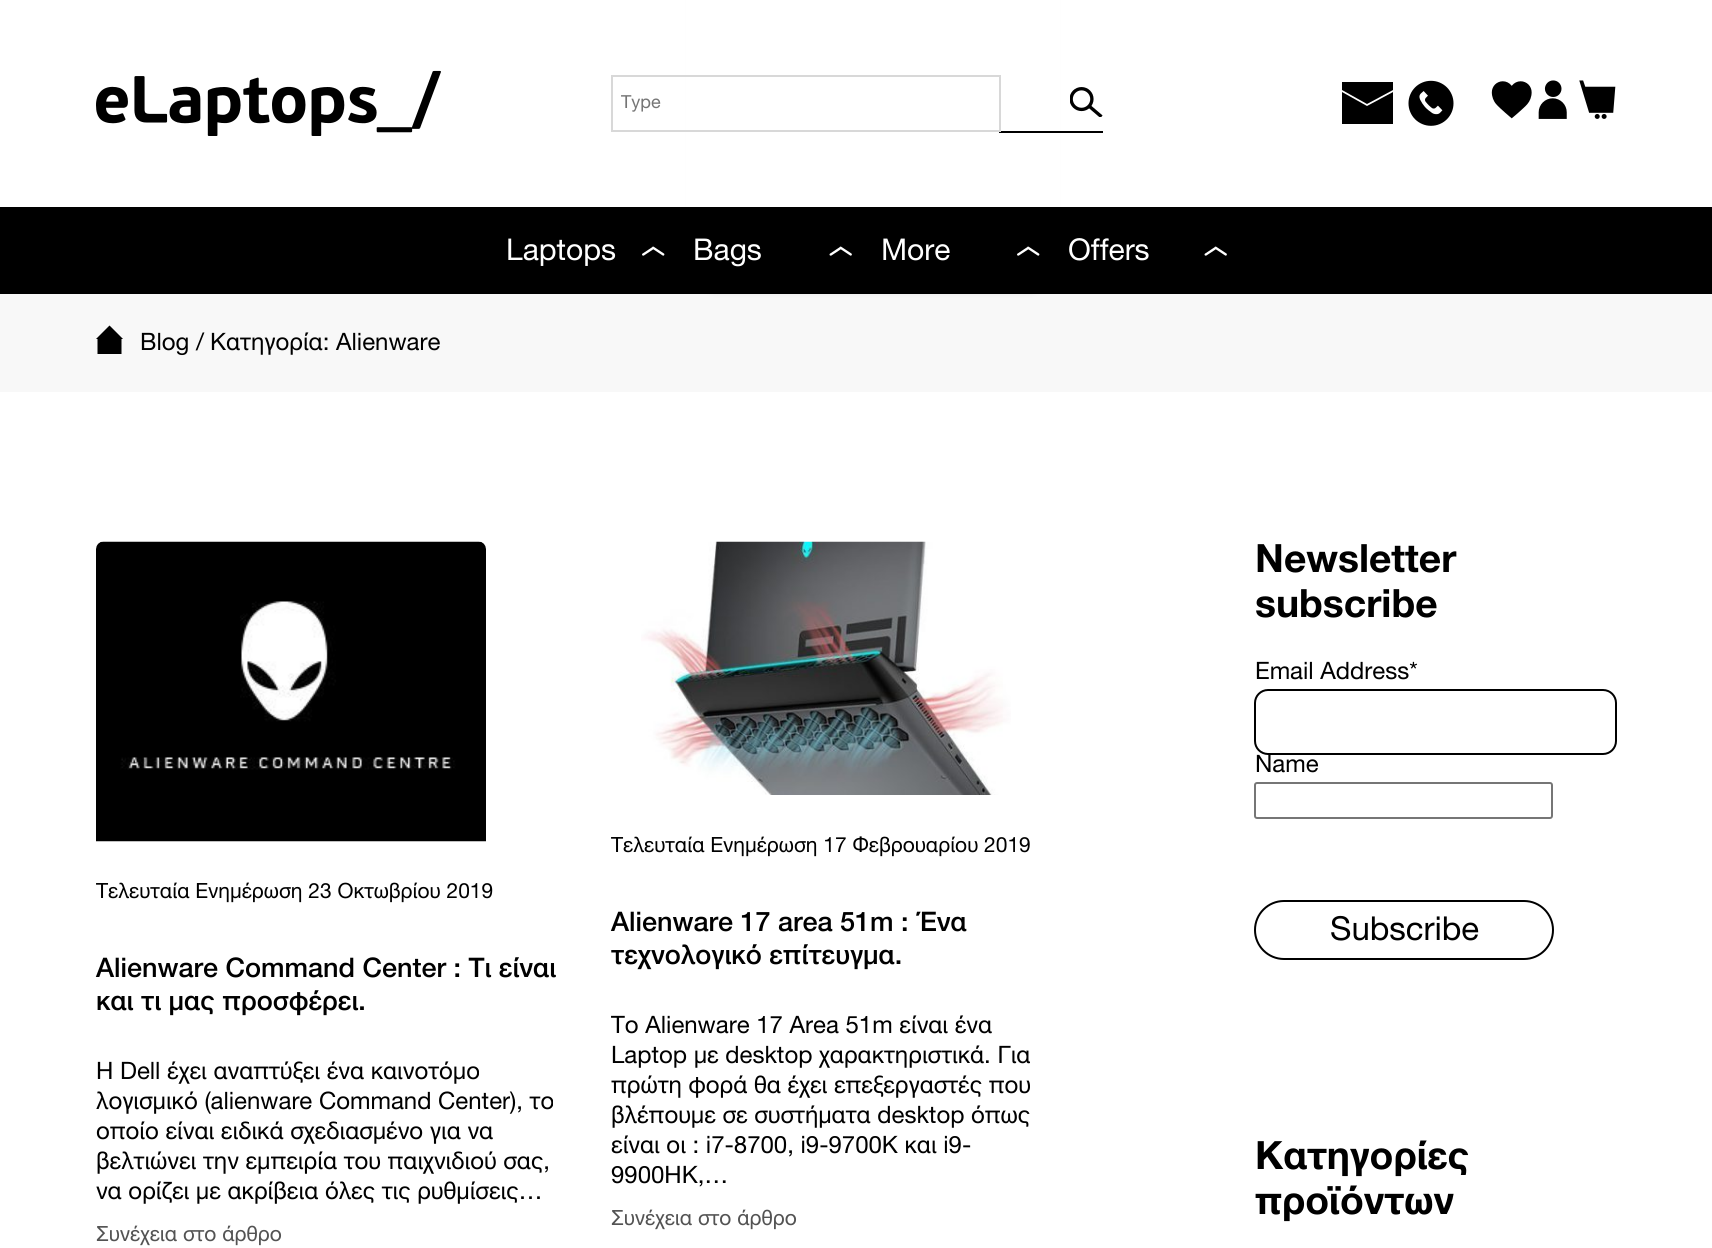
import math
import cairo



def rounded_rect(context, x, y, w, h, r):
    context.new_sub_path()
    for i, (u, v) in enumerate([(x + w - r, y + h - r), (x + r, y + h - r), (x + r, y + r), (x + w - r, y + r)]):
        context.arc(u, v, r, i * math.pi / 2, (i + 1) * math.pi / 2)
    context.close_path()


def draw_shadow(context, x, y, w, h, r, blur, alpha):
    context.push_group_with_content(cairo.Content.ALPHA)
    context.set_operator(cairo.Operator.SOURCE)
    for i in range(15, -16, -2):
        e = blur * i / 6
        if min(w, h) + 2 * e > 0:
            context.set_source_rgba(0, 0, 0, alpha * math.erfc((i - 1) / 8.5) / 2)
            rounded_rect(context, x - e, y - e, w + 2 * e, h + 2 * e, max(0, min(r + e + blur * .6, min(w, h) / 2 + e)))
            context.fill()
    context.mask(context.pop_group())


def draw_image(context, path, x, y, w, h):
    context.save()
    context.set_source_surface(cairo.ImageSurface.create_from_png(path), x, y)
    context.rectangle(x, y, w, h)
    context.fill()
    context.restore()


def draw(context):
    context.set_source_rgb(1, 1, 1)
    context.paint()
    context.set_source_rgb(0, 0, 0)
    context.rectangle(0, 207, 1712, 87)
    context.fill()
    context.set_source_rgb(248 / 255, 248 / 255, 248 / 255)
    context.rectangle(0, 294, 1712, 98)
    context.fill()
    context.set_source_rgb(0, 0, 0)
    draw_shadow(context, 693, -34, 360, 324, 24, 4.5, 0.16)
    context.set_source_rgb(1, 1, 1)
    context.rectangle(686, 0, 374, 207)
    context.fill()
    draw_image(context, "images/1.png", 96, 70, 345, 66)
    context.set_source_rgb(0, 0, 0)
    context.rectangle(999, 131, 104, 2)
    context.fill()
    context.rectangle(612, 76, 388, 55)
    context.set_source_rgb(216 / 255, 216 / 255, 216 / 255)
    context.stroke()
    draw_image(context, "images/2.png", 1070, 87, 33, 30)
    context.set_source_rgb(0, 0, 0)
    context.new_path()
    context.move_to(1342, 82)
    context.line_to(1342, 90)
    context.line_to(1367, 104)
    context.line_to(1393, 90)
    context.line_to(1393, 82)
    context.close_path()
    context.move_to(1367, 106)
    context.line_to(1342, 92)
    context.line_to(1342, 124)
    context.line_to(1393, 124)
    context.line_to(1393, 92)
    context.close_path()
    context.fill()
    draw_image(context, "images/3.png", 1408, 80, 46, 46)
    draw_image(context, "images/4.png", 1491, 81, 41, 38)
    draw_image(context, "images/5.png", 1538, 80, 29, 39)
    draw_image(context, "images/6.png", 1579, 80, 37, 39)
    draw_image(context, "images/7.png", 642, 246, 23, 10)
    draw_image(context, "images/8.png", 829, 246, 23, 10)
    draw_image(context, "images/7.png", 1017, 246, 23, 10)
    draw_image(context, "images/8.png", 1204, 246, 23, 10)
    context.new_path()
    context.move_to(97.5, 354)
    context.line_to(97.5, 339)
    context.line_to(96, 339)
    context.line_to(109.5, 325.5)
    context.line_to(123, 339)
    context.line_to(121.5, 339)
    context.line_to(121.5, 354)
    context.close_path()
    context.fill()
    draw_image(context, "images/9.png", 96, 541, 390, 301)
    draw_image(context, "images/10.png", 641, 541, 370, 254)
    rounded_rect(context, 1255, 690, 361, 64, 13)
    context.stroke()
    rounded_rect(context, 1255, 783, 297, 35, 2)
    context.set_source_rgb(118 / 255, 118 / 255, 118 / 255)
    context.stroke()
    rounded_rect(context, 1255, 901, 298, 58, 29)
    context.set_source_rgb(0, 0, 0)
    context.stroke()
    context.select_font_face("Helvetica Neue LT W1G")
    context.set_font_size(18)
    context.set_source_rgb(117 / 255, 117 / 255, 117 / 255)
    context.move_to(621, 108)
    context.show_text("Type")
    context.set_font_size(30)
    context.set_source_rgb(1, 1, 1)
    context.move_to(506, 260)
    context.show_text("Laptops")
    context.move_to(693, 260)
    context.show_text("Bags")
    context.move_to(881, 260)
    context.show_text("More")
    context.move_to(1068, 260)
    context.show_text("Offers")
    context.set_font_size(24)
    context.set_source_rgb(0, 0, 0)
    context.move_to(140, 350)
    context.show_text("Blog /")
    context.move_to(210, 350)
    context.show_text("Κατηγορία: Alienware")
    context.set_font_size(21)
    context.move_to(96, 898)
    context.show_text("Τελευταία Ενημέρωση 23 Οκτωβρίου 2019")
    context.select_font_face("Helvetica Neue LT W1G Medium")
    context.set_font_size(27)
    context.move_to(96, 977)
    context.show_text("Alienware Command Center : Τι είναι")
    context.move_to(96, 1010)
    context.show_text("και τι μας προσφέρει.")
    context.select_font_face("Helvetica Neue LT W1G")
    context.set_font_size(24)
    context.move_to(96, 1079)
    context.show_text("Η Dell έχει αναπτύξει ένα καινοτόμο")
    context.move_to(96, 1109)
    context.show_text("λογισμικό (alienware Command Center), το")
    context.move_to(96, 1139)
    context.show_text("οποίο είναι ειδικά σχεδιασμένο για να")
    context.move_to(96, 1169)
    context.show_text("βελτιώνει την εμπειρία του παιχνιδιού σας,")
    context.move_to(96, 1199)
    context.show_text("να ορίζει με ακρίβεια όλες τις ρυθμίσεις…")
    context.set_font_size(21)
    context.set_source_rgb(83 / 255, 83 / 255, 83 / 255)
    context.move_to(96, 1241)
    context.show_text("Συνέχεια στο άρθρο")
    context.set_source_rgb(0, 0, 0)
    context.move_to(611, 852)
    context.show_text("Τελευταία Ενημέρωση 17 Φεβρουαρίου 2019")
    context.select_font_face("Helvetica Neue LT W1G Medium")
    context.set_font_size(27)
    context.move_to(611, 931)
    context.show_text("Alienware 17 area 51m : Ένα")
    context.move_to(611, 964)
    context.show_text("τεχνολογικό επίτευγμα.")
    context.select_font_face("Helvetica Neue LT W1G")
    context.set_font_size(24)
    context.move_to(611, 1033)
    context.show_text("Το Alienware 17 Area 51m είναι ένα")
    context.move_to(611, 1063)
    context.show_text("Laptop με desktop χαρακτηριστικά. Για")
    context.move_to(611, 1093)
    context.show_text("πρώτη φορά θα έχει επεξεργαστές που")
    context.move_to(611, 1123)
    context.show_text("βλέπουμε σε συστήματα desktop όπως")
    context.move_to(611, 1153)
    context.show_text("είναι οι : i7-8700, i9-9700K και i9-")
    context.move_to(611, 1183)
    context.show_text("9900HK,…")
    context.set_font_size(21)
    context.set_source_rgb(83 / 255, 83 / 255, 83 / 255)
    context.move_to(611, 1225)
    context.show_text("Συνέχεια στο άρθρο")
    context.select_font_face("Helvetica Neue LT W1G", cairo.FontSlant.NORMAL, cairo.FontWeight.BOLD)
    context.set_font_size(39)
    context.set_source_rgb(0, 0, 0)
    context.move_to(1255, 572)
    context.show_text("Newsletter")
    context.move_to(1255, 617)
    context.show_text("subscribe")
    context.select_font_face("Helvetica Neue LT W1G")
    context.set_font_size(24)
    context.move_to(1255, 679)
    context.show_text("Email Address*")
    context.move_to(1255, 772)
    context.show_text("Name")
    context.set_font_size(33)
    context.move_to(1330, 940)
    context.show_text("Subscribe")
    context.select_font_face("Helvetica Neue LT W1G", cairo.FontSlant.NORMAL, cairo.FontWeight.BOLD)
    context.set_font_size(39)
    context.move_to(1255, 1169)
    context.show_text("Κατηγορίες")
    context.move_to(1255, 1214)
    context.show_text("προϊόντων")


surface = cairo.ImageSurface(cairo.Format.RGB24, 1712, 1248)
context = cairo.Context(surface)
options = cairo.FontOptions()
options.set_hint_metrics(cairo.HintMetrics.OFF)
options.set_hint_style(cairo.HintStyle.NONE)
context.set_font_options(options)
context.set_miter_limit(4)
draw(context)
surface.write_to_png("out.png")
